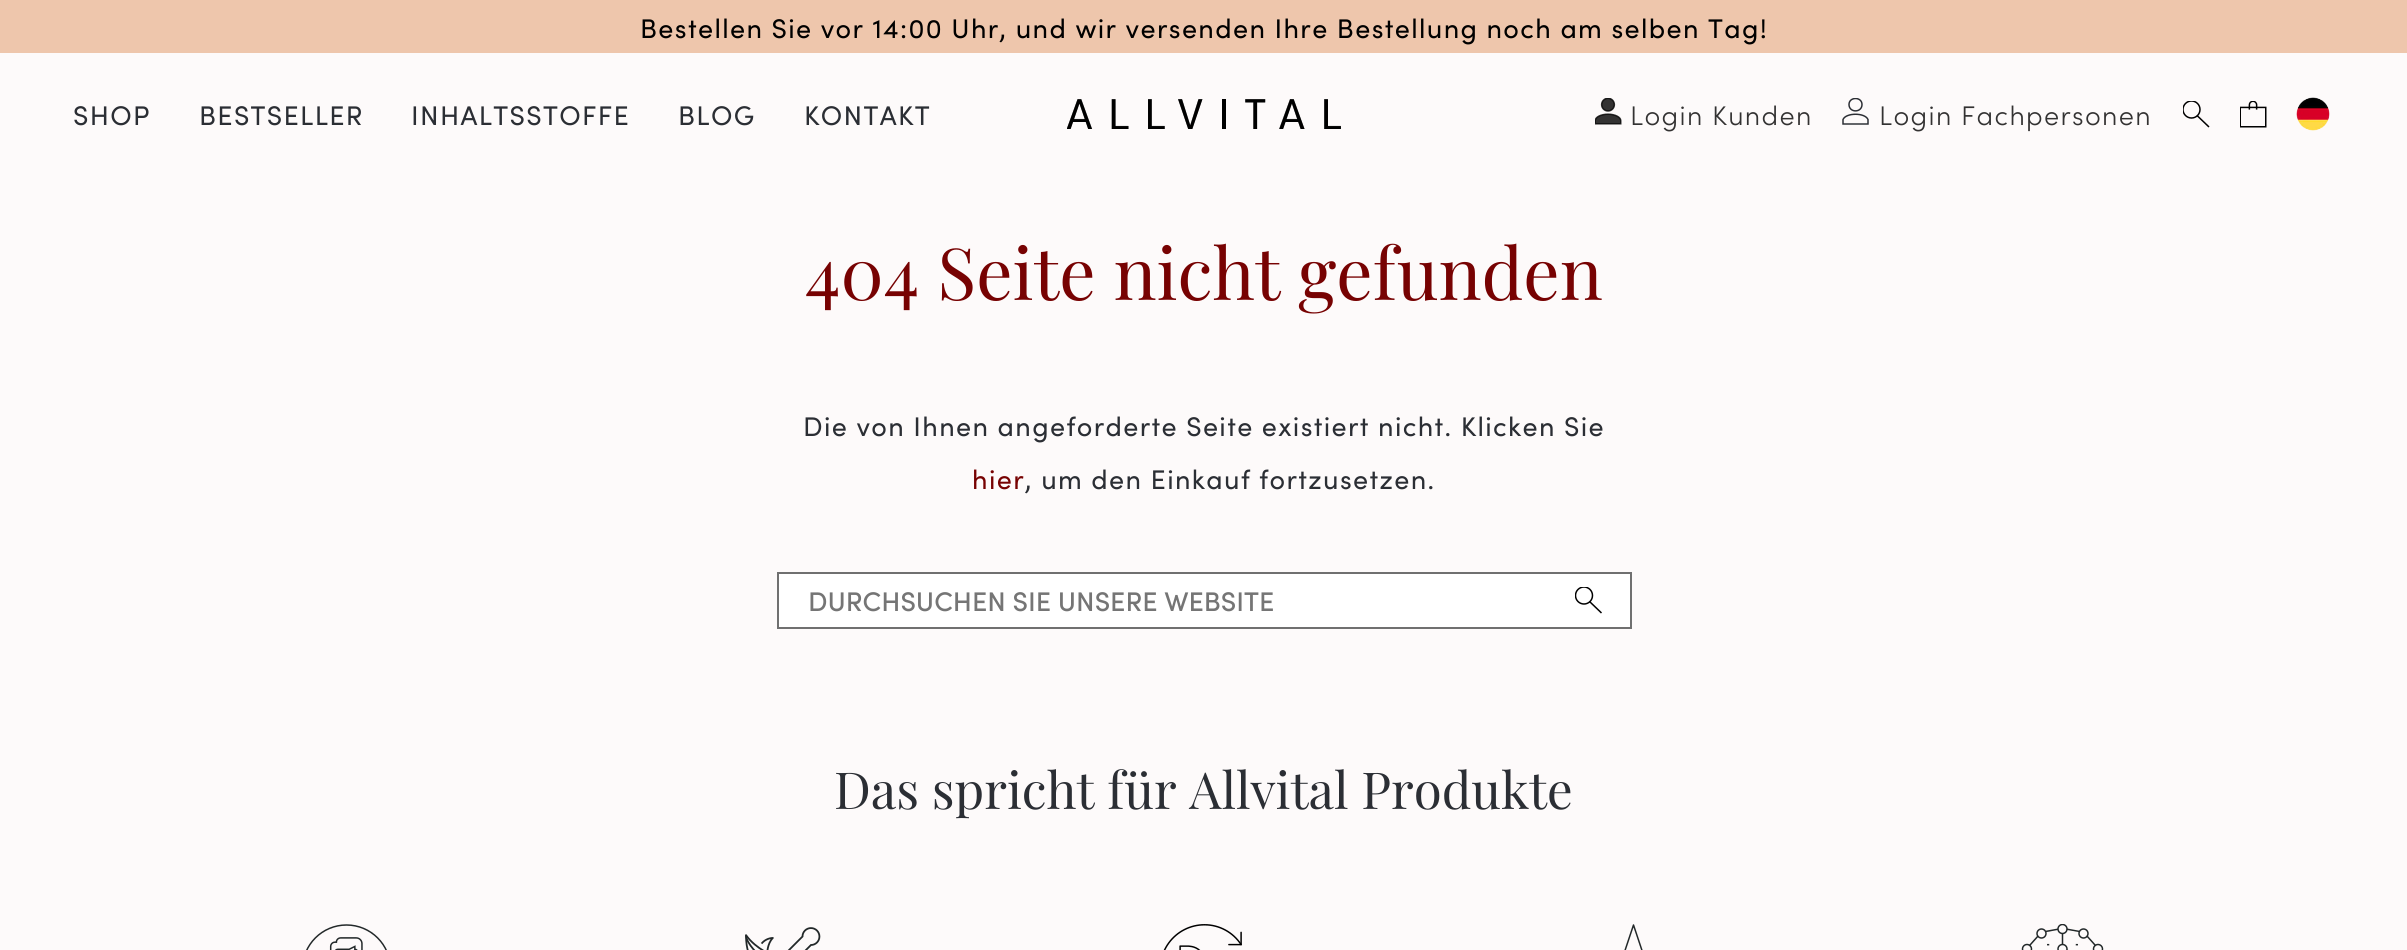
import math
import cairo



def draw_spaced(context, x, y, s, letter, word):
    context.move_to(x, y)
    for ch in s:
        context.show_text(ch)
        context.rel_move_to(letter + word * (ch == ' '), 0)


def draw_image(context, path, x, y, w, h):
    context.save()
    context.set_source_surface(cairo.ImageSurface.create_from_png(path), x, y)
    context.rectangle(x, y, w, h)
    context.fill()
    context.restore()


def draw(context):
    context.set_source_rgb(253 / 255, 250 / 255, 250 / 255)
    context.paint()
    context.set_source_rgb(238 / 255, 198 / 255, 172 / 255)
    context.rectangle(0, 0, 2407, 53)
    context.fill()
    draw_image(context, "images/1.png", 1067, 99, 274, 30)
    draw_image(context, "images/2.png", 1595, 98, 27, 27)
    context.save()
    context.rectangle(1842, 98, 27, 27)
    context.clip()
    context.new_path()
    context.move_to(1843, 124)
    context.line_to(1843, 119.5)
    context.curve_to(1846, 112.5, 1865, 112.5, 1868, 119.5)
    context.line_to(1868, 124)
    context.close_path()
    context.move_to(1849, 104.5)
    context.curve_to(1849, 96.5, 1862, 96.5, 1862, 104.5)
    context.curve_to(1862, 113, 1849, 113, 1849, 104.5)
    context.close_path()
    context.set_source_rgb(43 / 255, 46 / 255, 52 / 255)
    context.set_line_width(1.5)
    context.stroke()
    context.restore()
    context.save()
    context.rectangle(2183, 101, 27, 27)
    context.clip()
    context.arc(2191.5, 109.5, 8.5, 0, 2 * math.pi)
    context.set_source_rgb(0, 0, 0)
    context.set_line_width(1.5)
    context.stroke()
    context.restore()
    context.new_path()
    context.move_to(2197, 115.5)
    context.line_to(2209, 127)
    context.set_source_rgb(0, 0, 0)
    context.set_line_width(1.5)
    context.stroke()
    draw_image(context, "images/3.png", 2240, 101, 27, 27)
    draw_image(context, "images/4.png", 2296, 97, 34, 34)
    context.set_source_rgb(1, 1, 1)
    context.rectangle(778, 573, 853, 55)
    context.fill_preserve()
    context.set_source_rgb(112 / 255, 112 / 255, 112 / 255)
    context.set_line_width(2)
    context.stroke()
    context.save()
    context.rectangle(1575, 587, 27, 27)
    context.clip()
    context.arc(1584, 595.5, 8.5, 0, 2 * math.pi)
    context.set_source_rgb(0, 0, 0)
    context.set_line_width(1.5)
    context.stroke()
    context.restore()
    context.new_path()
    context.move_to(1589.5, 601.5)
    context.line_to(1601.5, 613)
    context.set_source_rgb(0, 0, 0)
    context.set_line_width(1.5)
    context.stroke()
    draw_image(context, "images/5.png", 306, 924, 81, 26)
    draw_image(context, "images/6.png", 745, 927, 76, 23)
    draw_image(context, "images/7.png", 1163, 924, 79, 26)
    context.new_path()
    context.move_to(1633.5, 925)
    context.line_to(1644.5, 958)
    context.line_to(1677.5, 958)
    context.line_to(1650, 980)
    context.line_to(1661, 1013)
    context.line_to(1633.5, 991)
    context.line_to(1606, 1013)
    context.line_to(1617, 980)
    context.line_to(1589.5, 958)
    context.line_to(1622.5, 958)
    context.close_path()
    context.set_source_rgb(34 / 255, 40 / 255, 41 / 255)
    context.set_line_join(cairo.LineJoin.ROUND)
    context.stroke()
    draw_image(context, "images/8.png", 2021, 924, 83, 26)
    context.select_font_face("Sofia")
    context.set_font_size(27)
    context.set_source_rgb(0, 0, 0)
    draw_spaced(context, 640, 38, "Bestellen Sie vor 14:00 Uhr, und wir versenden Ihre Bestellung noch am selben Tag!", 1.35, 0)
    context.set_source_rgb(43 / 255, 46 / 255, 52 / 255)
    draw_spaced(context, 73, 125, "SHOP", 1.35, 0)
    draw_spaced(context, 199, 125, "BESTSELLER", 1.35, 0)
    draw_spaced(context, 411, 125, "INHALTSSTOFFE", 1.35, 0)
    draw_spaced(context, 678, 125, "BLOG", 1.35, 0)
    draw_spaced(context, 804, 125, "KONTAKT", 1.35, 0)
    context.select_font_face("Sofia Light")
    context.set_source_rgb(51 / 255, 50 / 255, 50 / 255)
    draw_spaced(context, 1630, 125, "Login Kunden", 1.35, 0)
    draw_spaced(context, 1879, 125, "Login Fachpersonen", 1.35, 0)
    context.select_font_face("Playfair Display")
    context.set_font_size(72)
    context.set_source_rgb(119 / 255, 2 / 255, 2 / 255)
    context.move_to(805, 300)
    context.show_text("404 Seite nicht gefunden")
    context.select_font_face("Sofia")
    context.set_font_size(27)
    context.set_source_rgb(43 / 255, 46 / 255, 52 / 255)
    draw_spaced(context, 803, 436, "Die von Ihnen angeforderte Seite existiert nicht. Klicken Sie", 1.35, 0)
    context.set_source_rgb(119 / 255, 2 / 255, 2 / 255)
    draw_spaced(context, 972, 489, "hier", 1.35, 0)
    context.set_source_rgb(43 / 255, 46 / 255, 52 / 255)
    draw_spaced(context, 1025, 489, ", um den Einkauf fortzusetzen.", 1.35, 0)
    context.select_font_face("Sofia Medium")
    context.set_source_rgb(117 / 255, 117 / 255, 117 / 255)
    context.move_to(808, 611)
    context.show_text("DURCHSUCHEN SIE UNSERE WEBSITE")
    context.select_font_face("Playfair Display")
    context.set_font_size(51)
    context.set_source_rgb(43 / 255, 46 / 255, 52 / 255)
    context.move_to(834, 809)
    context.show_text("Das spricht für Allvital Produkte")


surface = cairo.ImageSurface(cairo.Format.RGB24, 2407, 950)
context = cairo.Context(surface)
options = cairo.FontOptions()
options.set_hint_metrics(cairo.HintMetrics.OFF)
options.set_hint_style(cairo.HintStyle.NONE)
context.set_font_options(options)
context.set_miter_limit(4)
draw(context)
surface.write_to_png("out.png")
